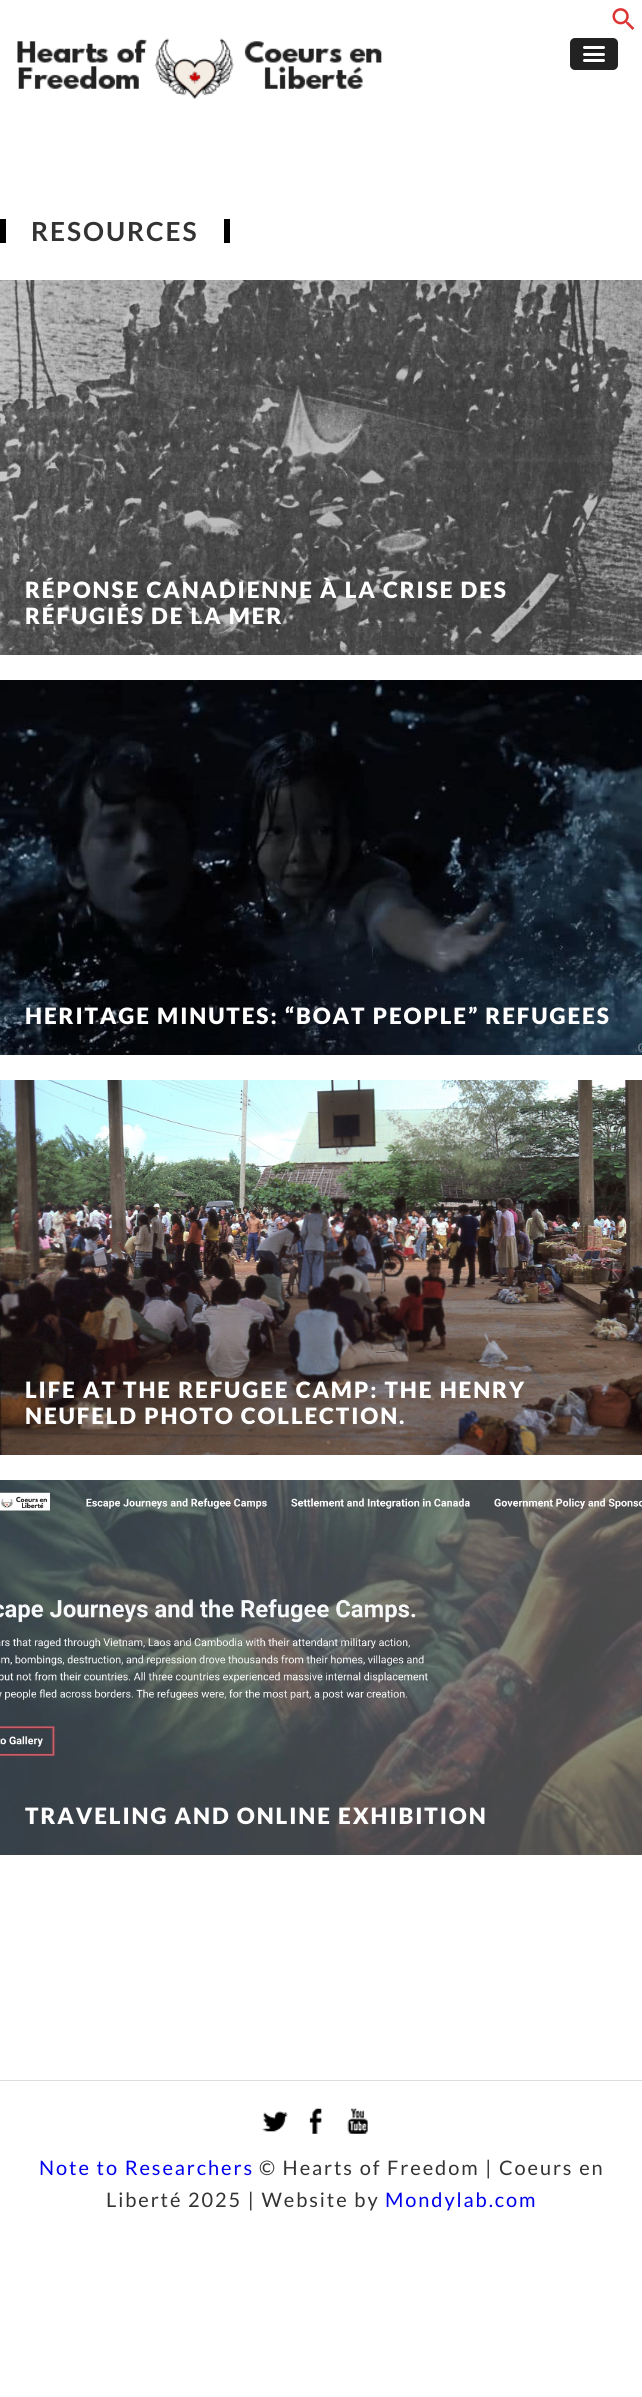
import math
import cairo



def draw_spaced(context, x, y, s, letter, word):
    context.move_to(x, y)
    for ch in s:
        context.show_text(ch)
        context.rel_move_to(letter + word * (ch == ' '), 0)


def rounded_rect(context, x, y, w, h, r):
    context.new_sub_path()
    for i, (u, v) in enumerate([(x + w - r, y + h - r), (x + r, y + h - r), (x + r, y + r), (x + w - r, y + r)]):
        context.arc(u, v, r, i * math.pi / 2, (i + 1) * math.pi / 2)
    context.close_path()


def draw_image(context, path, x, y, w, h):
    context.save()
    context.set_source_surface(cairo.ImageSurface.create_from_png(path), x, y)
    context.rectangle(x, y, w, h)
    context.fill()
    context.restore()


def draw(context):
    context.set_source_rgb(1, 1, 1)
    context.paint()
    draw_image(context, "images/1.png", 612, 8, 23, 22)
    draw_image(context, "images/2.png", 17, 38, 365, 61)
    context.set_source_rgb(34 / 255, 34 / 255, 34 / 255)
    rounded_rect(context, 570, 38, 48, 32, 5)
    context.fill()
    context.set_source_rgb(26 / 255, 26 / 255, 26 / 255)
    context.new_path()
    context.move_to(583.5, 48.5)
    context.curve_to(581.5, 51.5, 587, 51, 587.5, 51)
    context.line_to(594, 51)
    context.curve_to(596, 51, 604, 51.5, 604.5, 50.5)
    context.curve_to(605, 49.5, 605, 49, 604.5, 48.5)
    context.curve_to(604, 49, 584.5, 49, 583.5, 48.5)
    context.close_path()
    context.fill()
    context.set_source_rgb(1, 1, 1)
    rounded_rect(context, 583, 46, 22, 3, 1.5)
    context.fill()
    context.set_source_rgb(26 / 255, 26 / 255, 26 / 255)
    context.new_path()
    context.move_to(583, 55)
    context.curve_to(582, 57.5, 587, 57, 587.5, 57)
    context.line_to(600.5, 57)
    context.curve_to(600.5, 57, 607, 57.5, 604.5, 54.5)
    context.line_to(604, 55)
    context.close_path()
    context.fill()
    context.set_source_rgb(1, 1, 1)
    rounded_rect(context, 583, 53, 22, 3, 1.5)
    context.fill()
    context.set_source_rgb(26 / 255, 26 / 255, 26 / 255)
    context.new_path()
    context.move_to(583, 61)
    context.curve_to(582.5, 63.5, 587, 63, 587.5, 63)
    context.line_to(600.5, 63)
    context.curve_to(601, 63, 606.5, 63.5, 605, 60.5)
    context.line_to(604, 61)
    context.close_path()
    context.fill()
    context.set_source_rgb(1, 1, 1)
    rounded_rect(context, 583, 59, 22, 3, 1.5)
    context.fill()
    context.set_source_rgb(0, 0, 0)
    context.rectangle(224, 219, 6, 24)
    context.fill()
    context.rectangle(0, 219, 6, 24)
    context.fill()
    draw_image(context, "images/3.png", 0, 280, 642, 375)
    draw_image(context, "images/4.png", 0, 680, 642, 375)
    draw_image(context, "images/5.png", 0, 1080, 642, 375)
    draw_image(context, "images/6.png", 0, 1480, 642, 375)
    context.set_source_rgb(221 / 255, 221 / 255, 221 / 255)
    context.rectangle(0, 2080, 642, 1)
    context.fill()
    draw_image(context, "images/7.png", 262, 2111, 26, 21)
    draw_image(context, "images/8.png", 309, 2108, 13, 26)
    draw_image(context, "images/9.png", 347, 2108, 21, 26)
    context.select_font_face("Lato", cairo.FontSlant.NORMAL, cairo.FontWeight.BOLD)
    context.set_font_size(26.25)
    context.set_source_rgb(51 / 255, 51 / 255, 51 / 255)
    draw_spaced(context, 31, 241, "RESOURCES", 1.9, 0)
    context.select_font_face("Lato Black")
    context.set_font_size(22.5)
    context.set_source_rgb(1, 1, 1)
    draw_spaced(context, 25, 598, "RÉPONSE CANADIENNE À LA CRISE DES", 1.9, 0)
    draw_spaced(context, 25, 624, "RÉFUGIÉS DE LA MER", 1.9, 0)
    draw_spaced(context, 25, 1024, "HERITAGE MINUTES: “BOAT PEOPLE” REFUGEES", 1.9, 0)
    draw_spaced(context, 25, 1398, "LIFE AT THE REFUGEE CAMP: THE HENRY", 1.9, 0)
    draw_spaced(context, 25, 1424, "NEUFELD PHOTO COLLECTION.", 1.9, 0)
    draw_spaced(context, 25, 1824, "TRAVELING AND ONLINE EXHIBITION", 1.9, 0)
    context.select_font_face("Lato")
    context.set_font_size(20)
    context.set_source_rgb(0, 0, 238 / 255)
    draw_spaced(context, 39, 2175, "Note to Researchers", 1.9, 0)
    context.set_source_rgb(51 / 255, 51 / 255, 51 / 255)
    draw_spaced(context, 259, 2175, "© Hearts of Freedom | Coeurs en", 1.9, 0)
    draw_spaced(context, 106, 2207, "Liberté 2025 | Website by", 1.9, 0)
    context.set_source_rgb(0, 0, 238 / 255)
    draw_spaced(context, 385, 2207, "Mondylab.com", 1.9, 0)


surface = cairo.ImageSurface(cairo.Format.RGB24, 642, 2397)
context = cairo.Context(surface)
options = cairo.FontOptions()
options.set_hint_metrics(cairo.HintMetrics.OFF)
options.set_hint_style(cairo.HintStyle.NONE)
context.set_font_options(options)
context.set_miter_limit(4)
draw(context)
surface.write_to_png("out.png")
